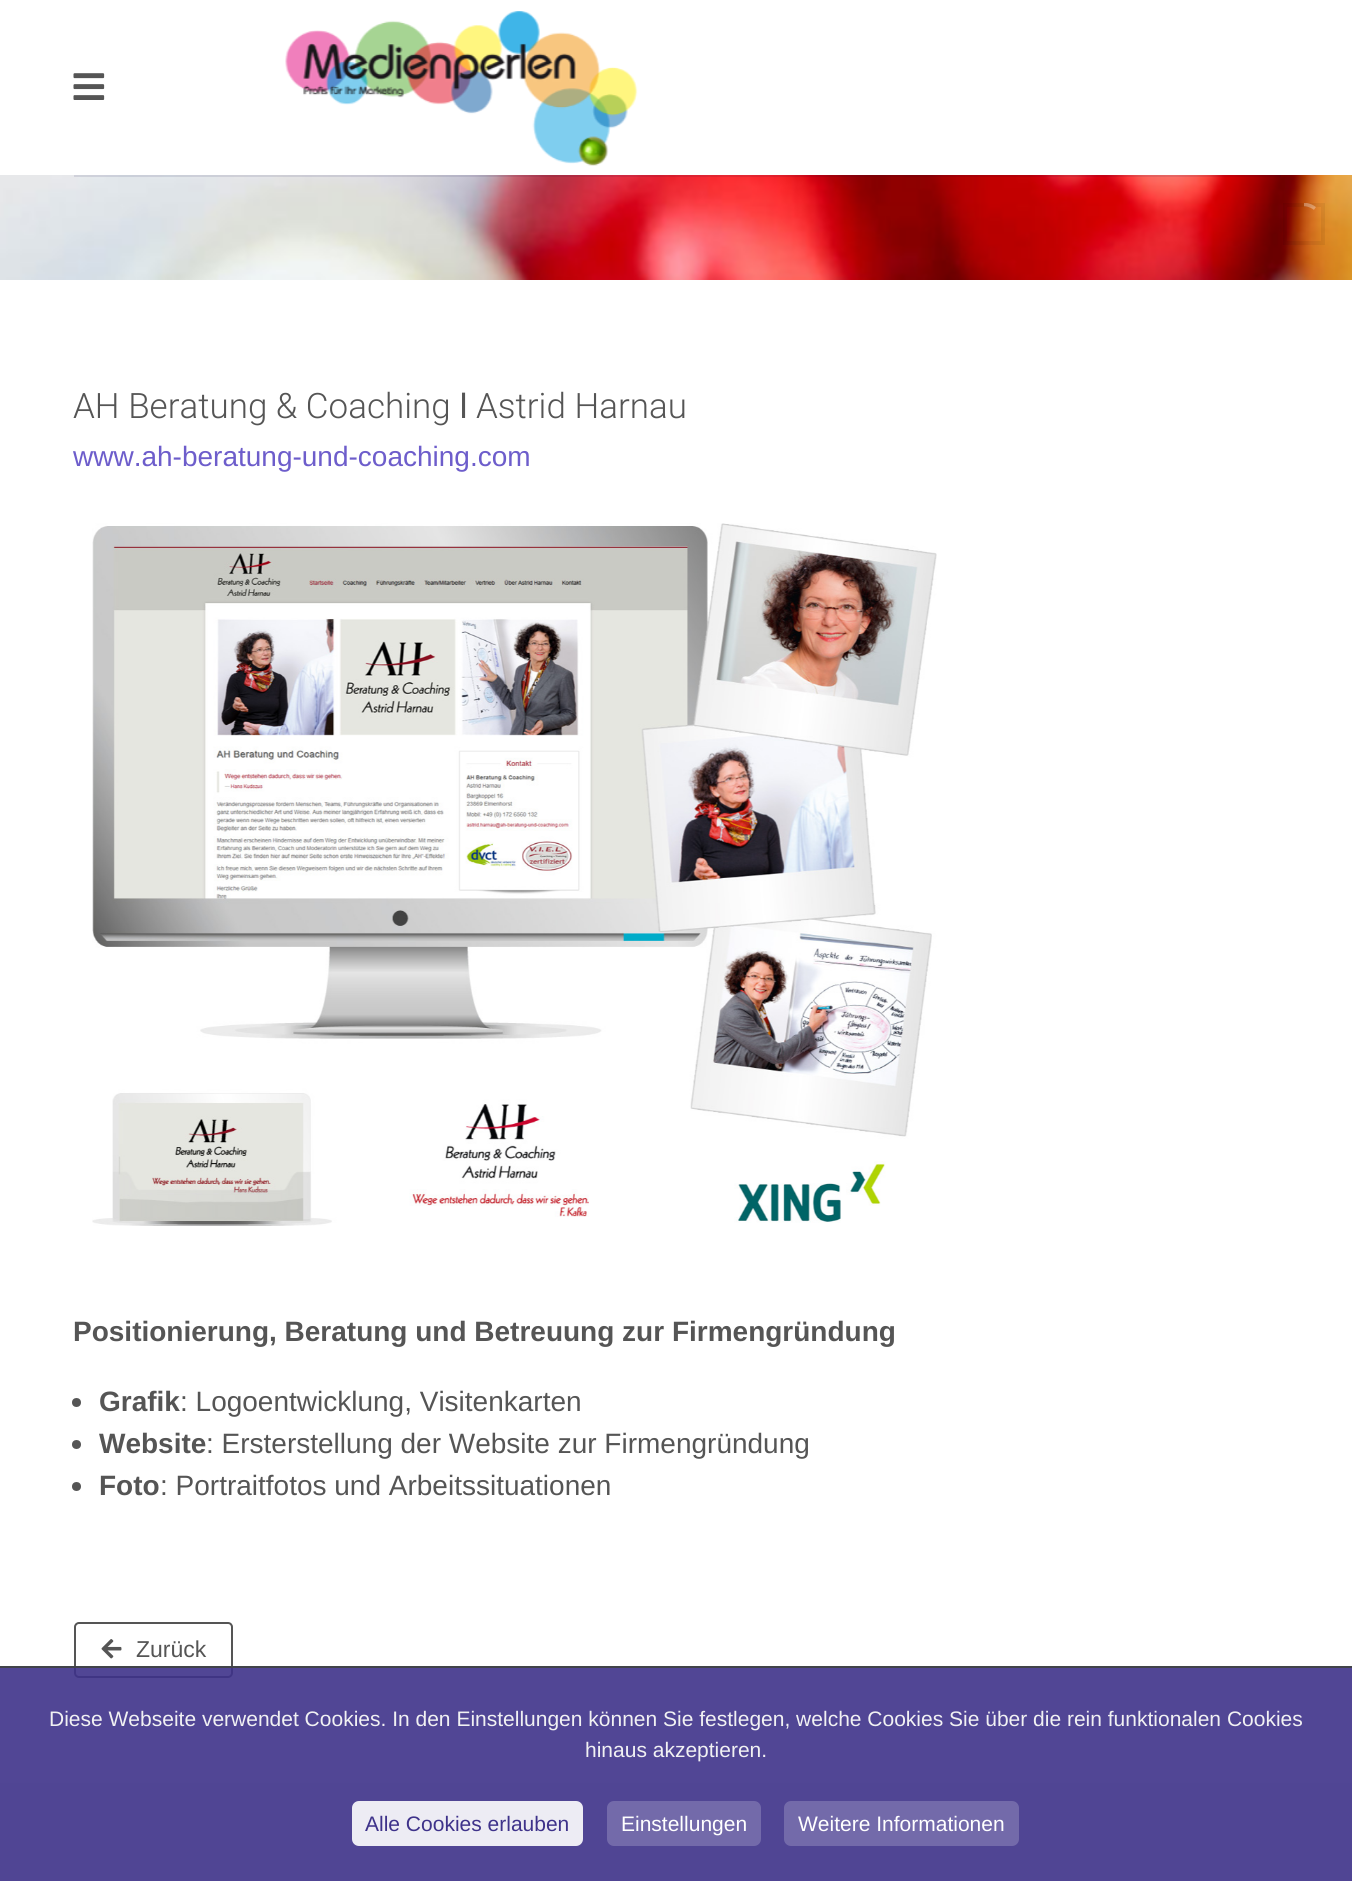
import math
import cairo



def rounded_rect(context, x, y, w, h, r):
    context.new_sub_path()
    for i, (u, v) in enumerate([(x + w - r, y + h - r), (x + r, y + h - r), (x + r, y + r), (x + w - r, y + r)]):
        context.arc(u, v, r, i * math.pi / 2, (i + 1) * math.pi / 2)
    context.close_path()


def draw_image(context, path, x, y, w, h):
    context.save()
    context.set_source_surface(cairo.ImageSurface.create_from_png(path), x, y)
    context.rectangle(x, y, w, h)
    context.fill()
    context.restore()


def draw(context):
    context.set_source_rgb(1, 1, 1)
    context.paint()
    draw_image(context, "images/3.png", 0, 175, 1352, 105)
    context.set_source_rgba(1 / 255, 9 / 255, 68 / 255, 0.1)
    context.rectangle(74, 175, 1207, 2)
    context.fill()
    draw_image(context, "images/1.png", 73, 73, 32, 27)
    draw_image(context, "images/2.png", 285, 11, 353, 155)
    context.rectangle(1285, 205, 38, 38)
    context.set_source_rgba(0, 0, 0, 0.06)
    context.set_line_width(4)
    context.stroke()
    context.save()
    context.rectangle(1304, 203, 21, 42)
    context.clip()
    context.new_path()
    context.move_to(1299.5, 194.5)
    context.line_to(1316, 207)
    context.line_to(1291.5, 241)
    context.line_to(1274.5, 228.5)
    context.close_path()
    context.clip()
    context.new_path()
    context.move_to(1315, 208.5)
    context.curve_to(1335.5, 223.5, 1312.5, 254.5, 1292.5, 239.5)
    context.curve_to(1272, 224.5, 1295, 193.5, 1315, 208.5)
    context.close_path()
    context.set_source_rgba(1, 1, 1, 0.32)
    context.set_line_width(3.5)
    context.stroke()
    context.restore()
    draw_image(context, "images/4.png", 92, 523, 845, 703)
    context.set_source_rgb(85 / 255, 85 / 255, 85 / 255)
    context.arc(76.5, 1402.5, 4.5, 0, 2 * math.pi)
    context.fill()
    context.arc(76.5, 1444.5, 4.5, 0, 2 * math.pi)
    context.fill()
    context.arc(76.5, 1486.5, 4.5, 0, 2 * math.pi)
    context.fill()
    rounded_rect(context, 75, 1623, 157, 54, 4)
    context.set_line_width(2)
    context.stroke()
    draw_image(context, "images/5.png", 101, 1639, 21, 20)
    context.set_source_rgb(241 / 255, 241 / 255, 241 / 255)
    context.rectangle(0, 1783, 1352, 98)
    context.fill()
    context.set_source_rgba(62 / 255, 50 / 255, 138 / 255, 0.9)
    context.rectangle(0, 1668, 1352, 213)
    context.fill()
    context.set_source_rgb(65 / 255, 67 / 255, 73 / 255)
    context.rectangle(0, 1666, 1352, 2)
    context.fill()
    context.set_source_rgb(237 / 255, 236 / 255, 244 / 255)
    rounded_rect(context, 352, 1801, 231, 45, 7)
    context.fill()
    context.set_source_rgb(115 / 255, 106 / 255, 170 / 255)
    rounded_rect(context, 607, 1801, 154, 45, 7)
    context.fill()
    rounded_rect(context, 784, 1801, 235, 45, 7)
    context.fill()
    context.select_font_face("Roboto Light")
    context.set_font_size(35)
    context.set_source_rgb(85 / 255, 85 / 255, 85 / 255)
    context.move_to(73, 418)
    context.show_text("AH Beratung & Coaching")
    context.select_font_face("Liberation Sans")
    context.move_to(459, 418)
    context.show_text("ǀ")
    context.select_font_face("Roboto Light")
    context.move_to(476, 418)
    context.show_text("Astrid Harnau")
    context.select_font_face("Liberation Sans")
    context.set_font_size(28)
    context.set_source_rgb(109 / 255, 93 / 255, 203 / 255)
    context.move_to(73, 466)
    context.show_text("www.ah-beratung-und-coaching.com")
    context.select_font_face("Liberation Sans", cairo.FontSlant.NORMAL, cairo.FontWeight.BOLD)
    context.set_source_rgb(85 / 255, 85 / 255, 85 / 255)
    context.move_to(73, 1341)
    context.show_text("Positionierung, Beratung und Betreuung zur Firmengründung")
    context.move_to(99, 1411)
    context.show_text("Grafik")
    context.select_font_face("Liberation Sans")
    context.move_to(180, 1411)
    context.show_text(": Logoentwicklung, Visitenkarten")
    context.select_font_face("Liberation Sans", cairo.FontSlant.NORMAL, cairo.FontWeight.BOLD)
    context.move_to(99, 1453)
    context.show_text("Website")
    context.select_font_face("Liberation Sans")
    context.move_to(206, 1453)
    context.show_text(": Ersterstellung der Website zur Firmengründung")
    context.select_font_face("Liberation Sans", cairo.FontSlant.NORMAL, cairo.FontWeight.BOLD)
    context.move_to(99, 1495)
    context.show_text("Foto")
    context.select_font_face("Liberation Sans")
    context.move_to(160, 1495)
    context.show_text(": Portraitfotos und Arbeitssituationen")
    context.set_font_size(23)
    context.move_to(136, 1657)
    context.show_text("Zurück")
    context.set_font_size(21)
    context.set_source_rgb(241 / 255, 241 / 255, 243 / 255)
    context.move_to(49, 1726)
    context.show_text("Diese Webseite verwendet Cookies. In den Einstellungen können Sie festlegen, welche Cookies Sie über die rein funktionalen Cookies")
    context.move_to(585, 1757)
    context.show_text("hinaus akzeptieren.")
    context.set_source_rgb(62 / 255, 50 / 255, 138 / 255)
    context.move_to(365, 1831)
    context.show_text("Alle Cookies erlauben")
    context.set_source_rgb(1, 1, 1)
    context.move_to(621, 1831)
    context.show_text("Einstellungen")
    context.move_to(798, 1831)
    context.show_text("Weitere Informationen")


surface = cairo.ImageSurface(cairo.Format.RGB24, 1352, 1881)
context = cairo.Context(surface)
options = cairo.FontOptions()
options.set_hint_metrics(cairo.HintMetrics.OFF)
options.set_hint_style(cairo.HintStyle.NONE)
context.set_font_options(options)
context.set_miter_limit(4)
draw(context)
surface.write_to_png("out.png")
